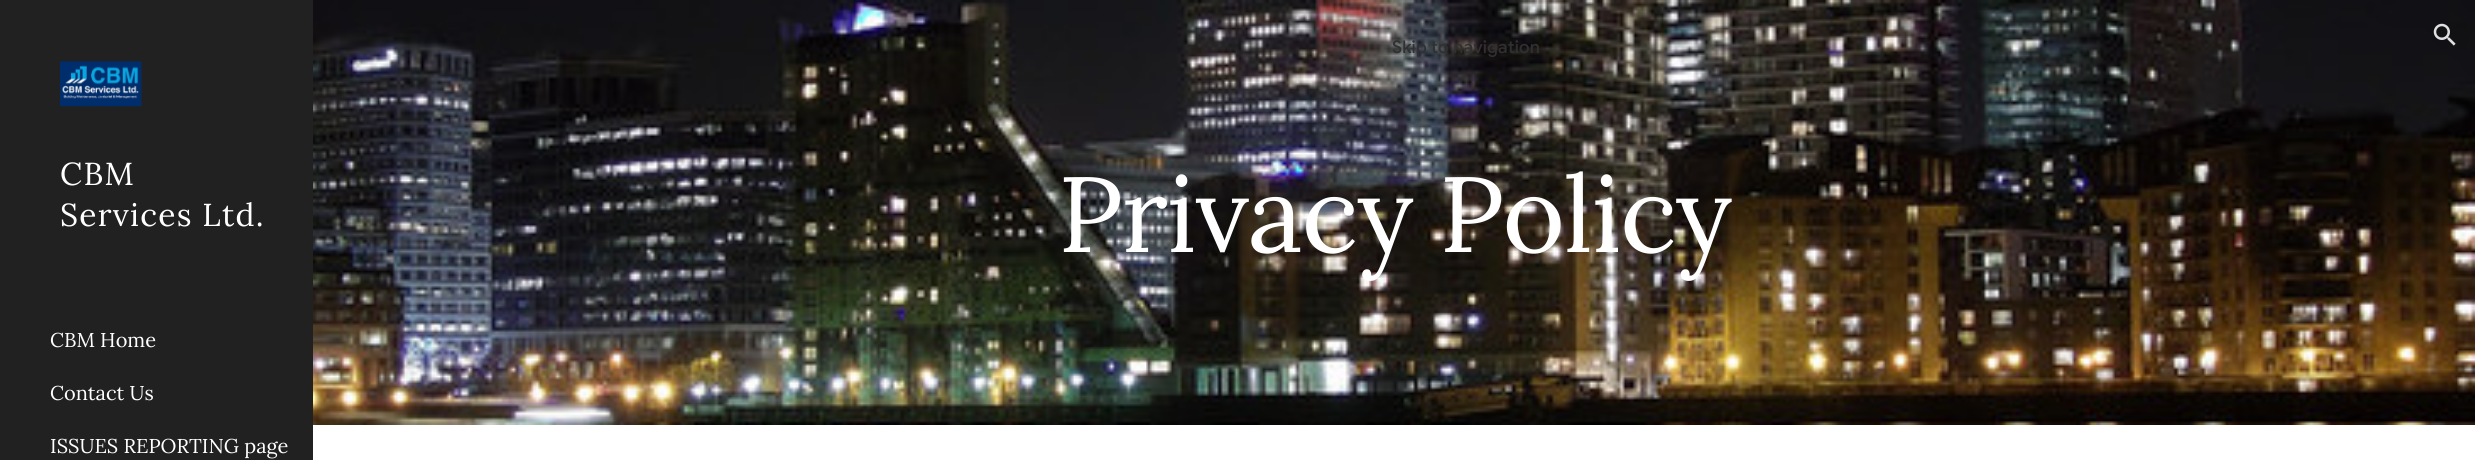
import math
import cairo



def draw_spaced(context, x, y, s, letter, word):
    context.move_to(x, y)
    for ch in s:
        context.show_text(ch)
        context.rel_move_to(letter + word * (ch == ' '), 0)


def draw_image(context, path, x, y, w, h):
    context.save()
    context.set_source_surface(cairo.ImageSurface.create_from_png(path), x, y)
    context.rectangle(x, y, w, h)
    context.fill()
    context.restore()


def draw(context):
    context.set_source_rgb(1, 1, 1)
    context.paint()
    draw_image(context, "images/3.png", 313, 0, 2162, 425)
    draw_image(context, "images/1.png", 2433, 23, 23, 23)
    context.set_source_rgb(33 / 255, 33 / 255, 33 / 255)
    context.rectangle(0, 0, 313, 460)
    context.fill()
    draw_image(context, "images/2.png", 60, 61, 82, 46)
    context.select_font_face("Google Sans Medium")
    context.set_font_size(17.5)
    context.set_source_rgb(48 / 255, 48 / 255, 49 / 255)
    draw_spaced(context, 1392, 53, "Skip to navigation", 0.2, 0)
    context.select_font_face("Lora")
    context.set_font_size(31.75)
    context.set_source_rgb(1, 1, 1)
    draw_spaced(context, 60, 185, "CBM", 1.25, 0)
    draw_spaced(context, 60, 226, "Services Ltd.", 1.25, 0)
    context.set_font_size(20)
    context.move_to(50, 347)
    context.show_text("CBM Home")
    context.move_to(50, 400)
    context.show_text("Contact Us")
    context.move_to(50, 453)
    context.show_text("ISSUES REPORTING page")
    context.set_font_size(106.75)
    draw_spaced(context, 1058, 252, "Privacy Policy", -1.25, 0)


surface = cairo.ImageSurface(cairo.Format.RGB24, 2475, 460)
context = cairo.Context(surface)
options = cairo.FontOptions()
options.set_hint_metrics(cairo.HintMetrics.OFF)
options.set_hint_style(cairo.HintStyle.NONE)
context.set_font_options(options)
context.set_miter_limit(4)
draw(context)
surface.write_to_png("out.png")
